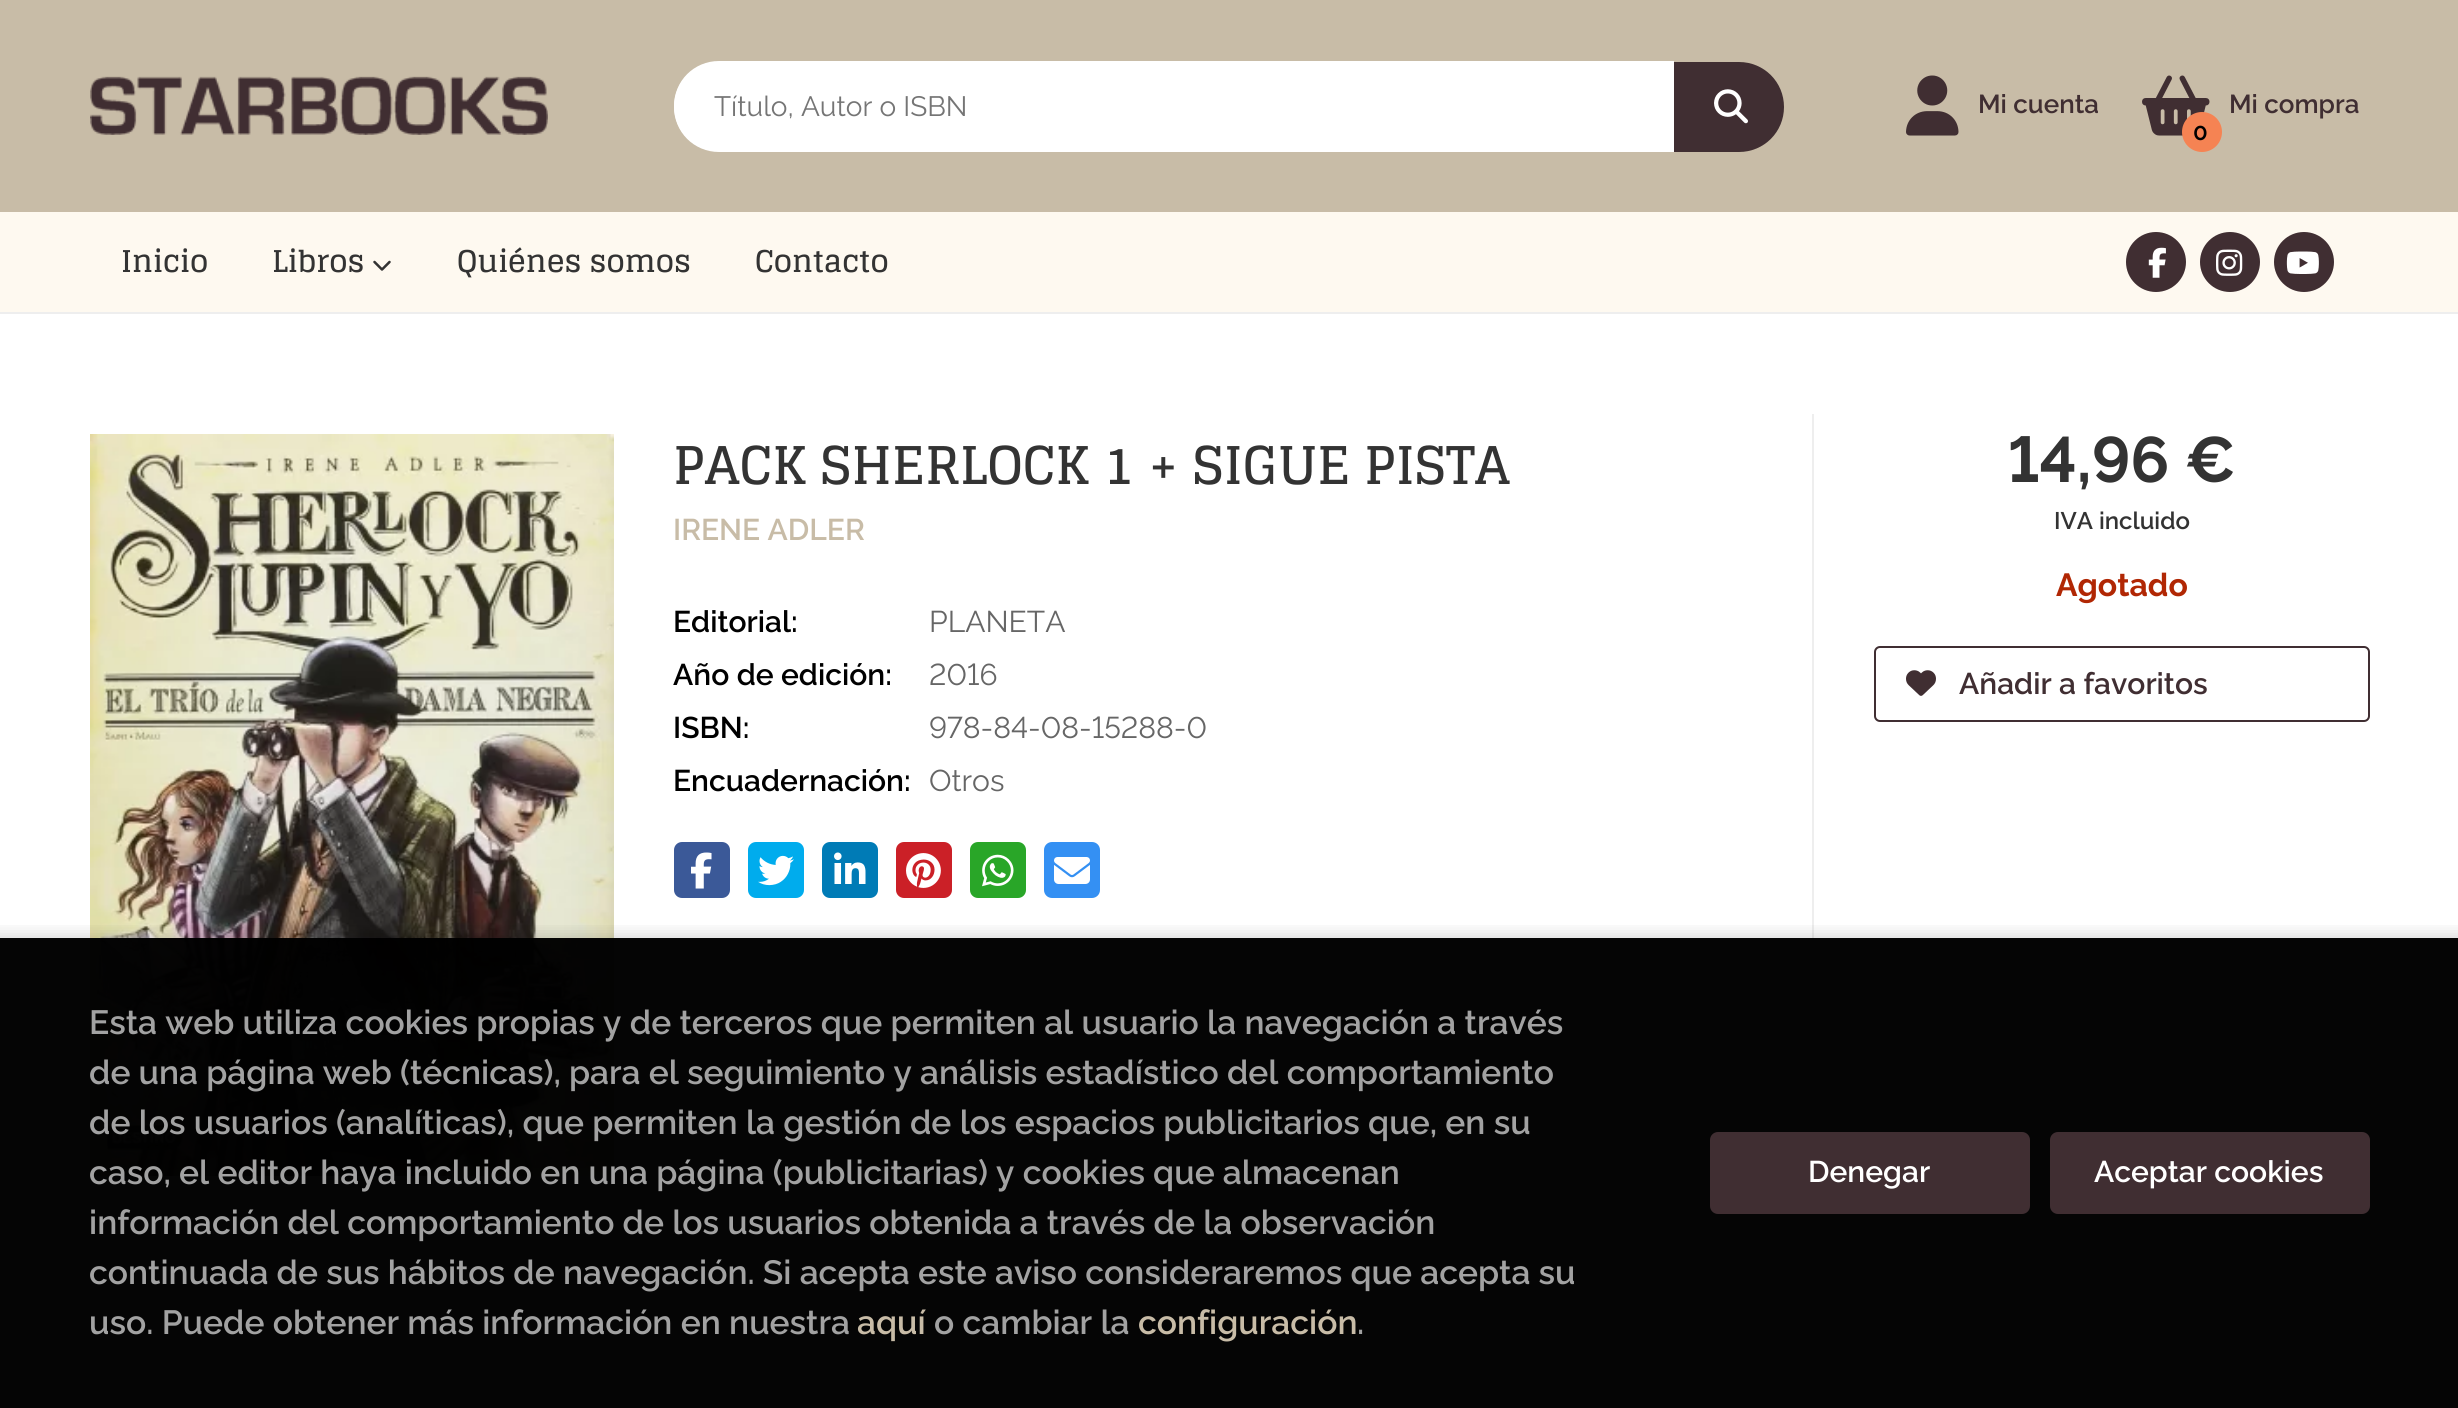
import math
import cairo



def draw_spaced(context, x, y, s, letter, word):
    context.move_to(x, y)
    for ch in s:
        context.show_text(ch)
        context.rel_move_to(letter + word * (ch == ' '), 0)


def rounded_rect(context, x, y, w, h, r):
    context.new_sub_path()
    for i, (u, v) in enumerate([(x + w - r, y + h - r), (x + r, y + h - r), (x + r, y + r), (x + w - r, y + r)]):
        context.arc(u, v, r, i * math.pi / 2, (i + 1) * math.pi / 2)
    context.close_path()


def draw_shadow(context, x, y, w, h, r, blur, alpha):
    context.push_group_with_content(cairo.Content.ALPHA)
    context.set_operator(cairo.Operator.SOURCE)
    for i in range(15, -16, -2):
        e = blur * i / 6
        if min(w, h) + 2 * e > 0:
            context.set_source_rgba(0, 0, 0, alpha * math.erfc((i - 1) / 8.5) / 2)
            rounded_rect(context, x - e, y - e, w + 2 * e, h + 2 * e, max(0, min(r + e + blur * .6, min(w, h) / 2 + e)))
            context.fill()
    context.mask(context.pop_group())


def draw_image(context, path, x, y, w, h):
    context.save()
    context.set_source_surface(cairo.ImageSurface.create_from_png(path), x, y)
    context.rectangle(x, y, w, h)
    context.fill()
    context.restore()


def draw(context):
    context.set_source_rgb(1, 1, 1)
    context.paint()
    context.set_source_rgb(200 / 255, 188 / 255, 167 / 255)
    context.rectangle(0, 0, 2458, 212)
    context.fill()
    draw_image(context, "images/1.png", 90, 76, 458, 59)
    context.set_source_rgb(1, 1, 1)
    context.new_path()
    context.move_to(719, 62)
    context.line_to(1674, 62)
    context.line_to(1674, 152)
    context.line_to(719, 152)
    context.curve_to(694, 152, 674, 132, 674, 107)
    context.curve_to(674, 82, 694, 62, 719, 62)
    context.close_path()
    context.fill()
    context.set_fill_rule(cairo.FillRule.EVEN_ODD)
    context.new_path()
    context.move_to(719, 61)
    context.line_to(1674, 61)
    context.line_to(1674, 151)
    context.line_to(719, 151)
    context.curve_to(694, 151, 674, 131, 674, 106)
    context.curve_to(674, 81, 694, 61, 719, 61)
    context.close_path()
    context.move_to(719, 65)
    context.line_to(1674, 65)
    context.line_to(1674, 147)
    context.line_to(719, 147)
    context.curve_to(696, 147, 678, 129, 678, 106)
    context.curve_to(678, 83, 696, 65, 719, 65)
    context.close_path()
    context.fill()
    context.set_source_rgb(64 / 255, 46 / 255, 50 / 255)
    context.new_path()
    context.move_to(1674, 62)
    context.line_to(1739, 62)
    context.curve_to(1764, 62, 1784, 82, 1784, 107)
    context.curve_to(1784, 132, 1764, 152, 1739, 152)
    context.line_to(1674, 152)
    context.close_path()
    context.fill()
    draw_image(context, "images/2.png", 1714, 89, 34, 35)
    draw_image(context, "images/3.png", 1906, 75, 53, 61)
    draw_image(context, "images/4.png", 2142, 75, 68, 61)
    context.set_source_rgb(245 / 255, 131 / 255, 83 / 255)
    context.arc(2202, 132, 20, 0, 2 * math.pi)
    context.fill()
    context.set_source_rgb(254 / 255, 249 / 255, 240 / 255)
    context.rectangle(0, 212, 2458, 100)
    context.fill()
    context.set_source_rgb(238 / 255, 238 / 255, 238 / 255)
    context.rectangle(0, 312, 2458, 2)
    context.fill()
    draw_image(context, "images/5.png", 373, 260, 18, 11)
    context.set_source_rgb(64 / 255, 46 / 255, 50 / 255)
    context.arc(2156, 262, 30, 0, 2 * math.pi)
    context.fill()
    draw_image(context, "images/6.png", 2148, 247, 18, 31)
    context.arc(2230, 262, 30, 0, 2 * math.pi)
    context.fill()
    draw_image(context, "images/7.png", 2216, 249, 27, 27)
    context.arc(2304, 262, 30, 0, 2 * math.pi)
    context.fill()
    draw_image(context, "images/8.png", 2286, 251, 33, 23)
    context.set_source_rgb(238 / 255, 238 / 255, 238 / 255)
    context.rectangle(1812, 414, 2, 718)
    context.fill()
    draw_image(context, "images/9.png", 90, 434, 524, 742)
    context.set_source_rgb(59 / 255, 89 / 255, 152 / 255)
    rounded_rect(context, 674, 842, 56, 56, 8)
    context.fill()
    draw_image(context, "images/10.png", 691, 852, 21, 37)
    context.set_source_rgb(0, 172 / 255, 237 / 255)
    rounded_rect(context, 748, 842, 56, 56, 8)
    context.fill()
    draw_image(context, "images/11.png", 758, 855, 36, 31)
    context.set_source_rgb(0, 123 / 255, 182 / 255)
    rounded_rect(context, 822, 842, 56, 56, 8)
    context.fill()
    draw_image(context, "images/12.png", 834, 852, 32, 32)
    context.set_source_rgb(203 / 255, 32 / 255, 39 / 255)
    rounded_rect(context, 896, 842, 56, 56, 8)
    context.fill()
    draw_image(context, "images/13.png", 906, 853, 35, 35)
    context.set_source_rgb(41 / 255, 166 / 255, 40 / 255)
    rounded_rect(context, 970, 842, 56, 56, 8)
    context.fill()
    draw_image(context, "images/14.png", 982, 854, 32, 33)
    context.set_source_rgb(52 / 255, 144 / 255, 243 / 255)
    rounded_rect(context, 1044, 842, 56, 56, 8)
    context.fill()
    draw_image(context, "images/15.png", 1054, 857, 36, 27)
    rounded_rect(context, 1875, 647, 494, 74, 5)
    context.set_source_rgb(64 / 255, 46 / 255, 50 / 255)
    context.stroke()
    draw_image(context, "images/16.png", 1906, 670, 30, 26)
    context.set_source_rgb(234 / 255, 234 / 255, 234 / 255)
    context.rectangle(90, 1368, 2280, 2)
    context.fill()
    context.save()
    context.set_fill_rule(cairo.FillRule.WINDING)
    context.rectangle(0, 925, 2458, 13)
    context.clip()
    context.set_source_rgb(0, 0, 0)
    draw_shadow(context, -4, 934, 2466, 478, 0, 8, 0.15)
    context.restore()
    context.set_source_rgba(0, 0, 0, 0.98)
    context.rectangle(0, 938, 2458, 470)
    context.fill()
    context.set_source_rgb(64 / 255, 46 / 255, 50 / 255)
    rounded_rect(context, 1711, 1133, 318, 80, 7)
    context.fill_preserve()
    context.stroke()
    rounded_rect(context, 2051, 1133, 318, 80, 7)
    context.fill_preserve()
    context.stroke()
    context.select_font_face("Raleway")
    context.set_font_size(28)
    context.set_source_rgb(117 / 255, 117 / 255, 117 / 255)
    context.move_to(714, 116)
    context.show_text("Título, Autor o ISBN")
    context.select_font_face("Raleway SemiBold")
    context.set_font_size(26)
    context.set_source_rgb(64 / 255, 46 / 255, 50 / 255)
    context.move_to(1978, 113)
    context.show_text("Mi cuenta")
    context.move_to(2229, 113)
    context.show_text("Mi compra")
    context.set_font_size(24)
    context.set_source_rgb(0, 0, 0)
    context.move_to(2193, 140)
    context.show_text("0")
    context.select_font_face("Glegoo", cairo.FontSlant.NORMAL, cairo.FontWeight.BOLD)
    context.set_font_size(30)
    context.set_source_rgb(51 / 255, 51 / 255, 51 / 255)
    context.move_to(121, 272)
    context.show_text("Inicio")
    context.move_to(272, 272)
    context.show_text("Libros")
    context.move_to(457, 272)
    context.show_text("Quiénes somos")
    context.move_to(755, 272)
    context.show_text("Contacto")
    context.set_font_size(52)
    context.move_to(673, 484)
    context.show_text("PACK SHERLOCK 1 + SIGUE PISTA")
    context.select_font_face("Raleway SemiBold")
    context.set_font_size(30)
    context.set_source_rgb(200 / 255, 188 / 255, 167 / 255)
    context.move_to(673, 540)
    context.show_text("IRENE ADLER")
    context.set_source_rgb(0, 0, 0)
    context.move_to(673, 632)
    context.show_text("Editorial:")
    context.select_font_face("Raleway")
    context.set_source_rgb(102 / 255, 102 / 255, 102 / 255)
    context.move_to(929, 632)
    context.show_text("PLANETA")
    context.select_font_face("Raleway SemiBold")
    context.set_source_rgb(0, 0, 0)
    context.move_to(673, 685)
    context.show_text("Año de edición:")
    context.select_font_face("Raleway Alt")
    context.set_source_rgb(102 / 255, 102 / 255, 102 / 255)
    context.move_to(929, 685)
    context.show_text("2016")
    context.select_font_face("Raleway SemiBold")
    context.set_source_rgb(0, 0, 0)
    context.move_to(673, 738)
    context.show_text("ISBN:")
    context.select_font_face("Raleway Alt")
    context.set_source_rgb(102 / 255, 102 / 255, 102 / 255)
    context.move_to(929, 738)
    context.show_text("978-84-08-15288-0")
    context.select_font_face("Raleway SemiBold")
    context.set_source_rgb(0, 0, 0)
    context.move_to(673, 791)
    context.show_text("Encuadernación:")
    context.select_font_face("Raleway")
    context.set_source_rgb(102 / 255, 102 / 255, 102 / 255)
    context.move_to(929, 791)
    context.show_text("Otros")
    context.select_font_face("Raleway Alt", cairo.FontSlant.NORMAL, cairo.FontWeight.BOLD)
    context.set_font_size(64)
    context.set_source_rgb(51 / 255, 51 / 255, 51 / 255)
    context.move_to(2008, 482)
    context.show_text("14,96 €")
    context.select_font_face("Raleway SemiBold")
    context.set_font_size(24)
    context.move_to(2054, 529)
    context.show_text("IVA incluido")
    context.select_font_face("Raleway", cairo.FontSlant.NORMAL, cairo.FontWeight.BOLD)
    context.set_font_size(32)
    context.set_source_rgb(177 / 255, 39 / 255, 4 / 255)
    context.move_to(2056, 596)
    context.show_text("Agotado")
    context.select_font_face("Raleway SemiBold")
    context.set_font_size(30)
    context.set_source_rgb(64 / 255, 46 / 255, 50 / 255)
    context.move_to(1959, 694)
    context.show_text("Añadir a favoritos")
    context.set_font_size(33.6)
    context.set_source_rgb(162 / 255, 162 / 255, 162 / 255)
    context.move_to(89, 1034)
    context.show_text("Esta web utiliza cookies propias y de terceros que permiten al usuario la navegación a través")
    draw_spaced(context, 89, 1084, "de una página web (técnicas), para el seguimiento y análisis estadístico del comportamiento", 0, -0.1)
    context.move_to(89, 1134)
    context.show_text("de los usuarios (analíticas), que permiten la gestión de los espacios publicitarios que, en su")
    draw_spaced(context, 89, 1184, "caso, el editor haya incluido en una página (publicitarias) y cookies que almacenan", 0, -0.1)
    draw_spaced(context, 89, 1234, "información del comportamiento de los usuarios obtenida a través de la observación", 0, -0.1)
    draw_spaced(context, 89, 1284, "continuada de sus hábitos de navegación. Si acepta este aviso consideraremos que acepta su", 0, -0.1)
    context.move_to(89, 1334)
    context.show_text("uso. Puede obtener más información en nuestra")
    context.set_source_rgb(200 / 255, 188 / 255, 167 / 255)
    context.move_to(857, 1334)
    context.show_text("aquí")
    context.set_source_rgb(162 / 255, 162 / 255, 162 / 255)
    context.move_to(934, 1334)
    context.show_text("o cambiar la")
    context.set_source_rgb(200 / 255, 188 / 255, 167 / 255)
    context.move_to(1138, 1334)
    context.show_text("configuración")
    context.set_source_rgb(162 / 255, 162 / 255, 162 / 255)
    context.move_to(1357, 1334)
    context.show_text(".")
    context.set_font_size(30)
    context.set_source_rgb(1, 1, 1)
    context.move_to(1808, 1182)
    context.show_text("Denegar")
    context.move_to(2094, 1182)
    context.show_text("Aceptar cookies")


surface = cairo.ImageSurface(cairo.Format.RGB24, 2458, 1408)
context = cairo.Context(surface)
options = cairo.FontOptions()
options.set_hint_metrics(cairo.HintMetrics.OFF)
options.set_hint_style(cairo.HintStyle.NONE)
context.set_font_options(options)
context.set_miter_limit(4)
draw(context)
surface.write_to_png("out.png")
